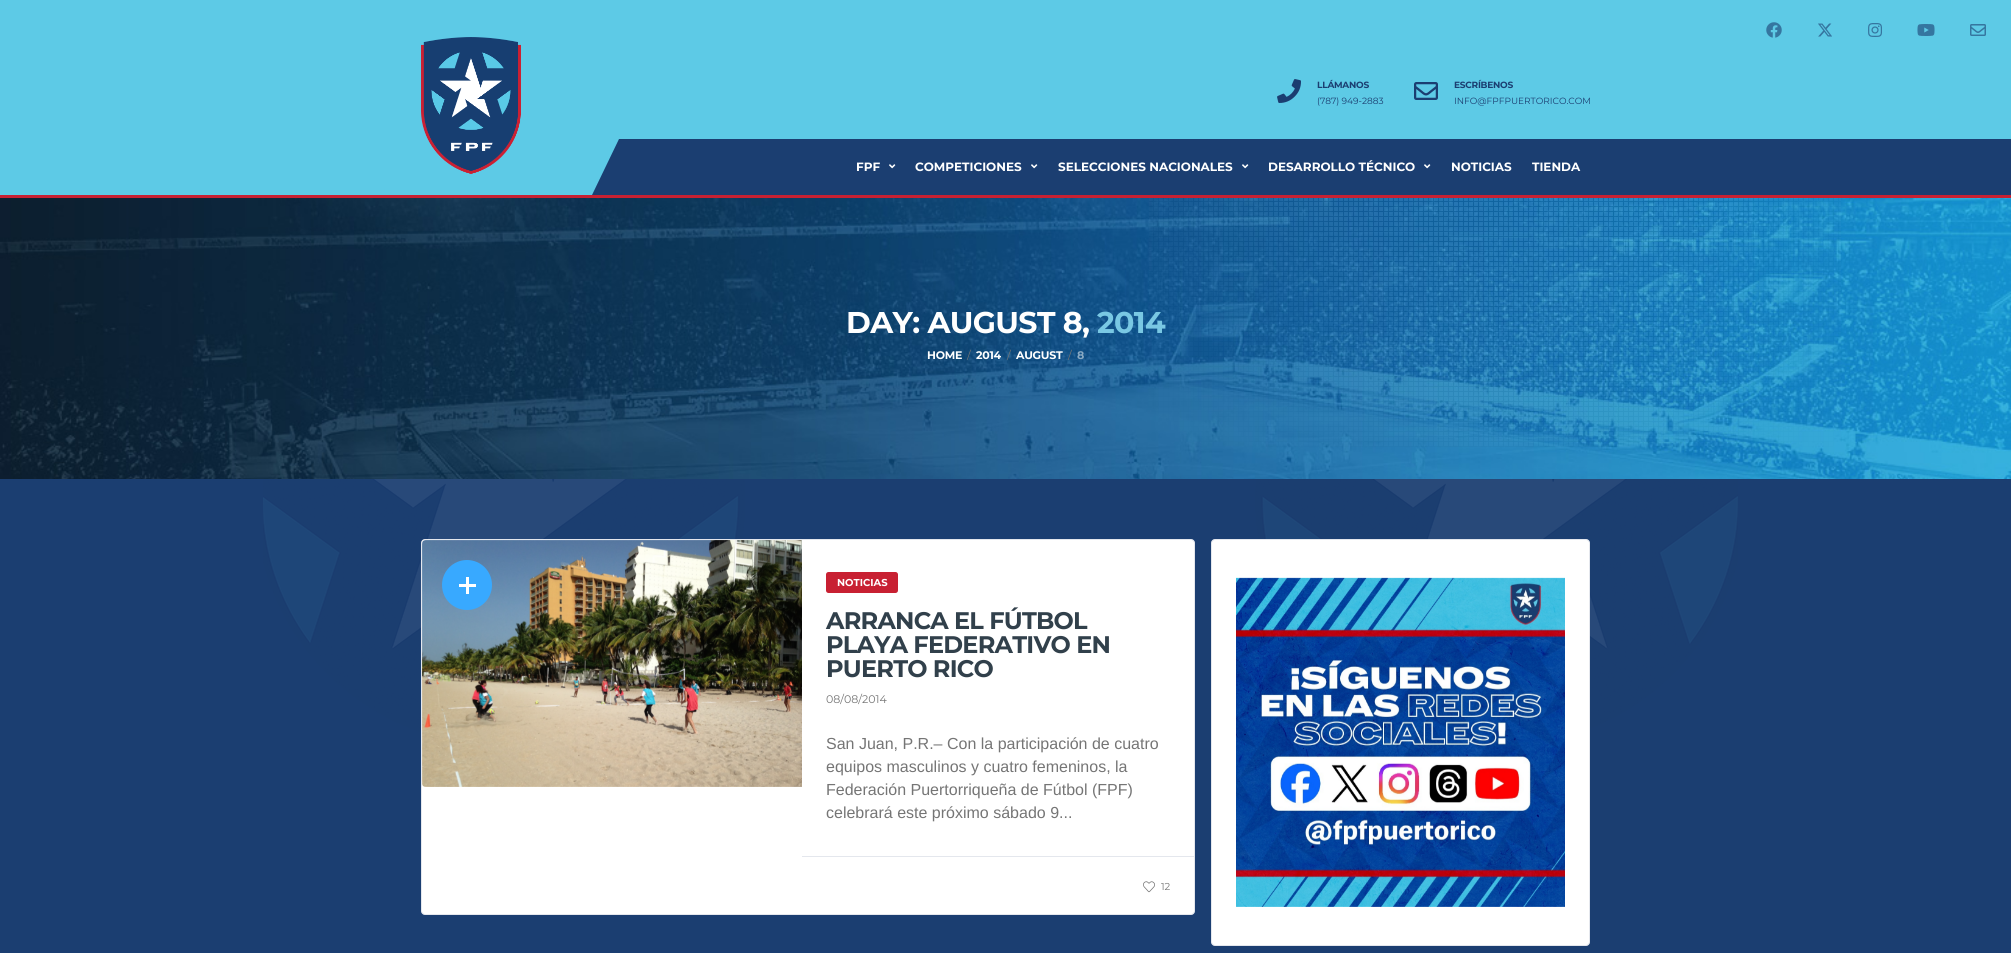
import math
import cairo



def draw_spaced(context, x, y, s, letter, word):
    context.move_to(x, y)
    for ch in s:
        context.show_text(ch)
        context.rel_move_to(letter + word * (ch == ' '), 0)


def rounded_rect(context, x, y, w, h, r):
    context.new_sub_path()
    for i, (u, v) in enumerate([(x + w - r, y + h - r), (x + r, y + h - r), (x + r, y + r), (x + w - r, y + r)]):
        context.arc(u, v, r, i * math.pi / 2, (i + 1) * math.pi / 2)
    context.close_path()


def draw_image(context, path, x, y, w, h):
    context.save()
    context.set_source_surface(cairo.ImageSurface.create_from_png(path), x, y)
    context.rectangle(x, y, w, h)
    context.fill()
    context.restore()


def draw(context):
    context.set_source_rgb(27 / 255, 62 / 255, 113 / 255)
    context.paint()
    draw_image(context, "images/1.png", 263, 479, 1475, 259)
    context.set_source_rgb(93 / 255, 202 / 255, 230 / 255)
    context.rectangle(0, 0, 2011, 195)
    context.fill()
    context.set_source_rgb(200 / 255, 32 / 255, 50 / 255)
    context.rectangle(0, 195, 2011, 3)
    context.fill()
    draw_image(context, "images/2.png", 1766, 22, 16, 16)
    draw_image(context, "images/3.png", 1818, 23, 14, 14)
    draw_image(context, "images/4.png", 1868, 23, 14, 14)
    draw_image(context, "images/5.png", 1917, 24, 18, 12)
    draw_image(context, "images/6.png", 1970, 24, 16, 12)
    draw_image(context, "images/7.png", 1277, 79, 24, 24)
    draw_image(context, "images/8.png", 1414, 82, 24, 18)
    context.set_source_rgb(27 / 255, 62 / 255, 113 / 255)
    context.rectangle(592, 139, 1419, 56)
    context.fill()
    context.set_source_rgb(93 / 255, 202 / 255, 230 / 255)
    context.new_path()
    context.move_to(409, 139)
    context.line_to(619, 139)
    context.line_to(592, 195)
    context.line_to(382, 195)
    context.close_path()
    context.fill()
    draw_image(context, "images/9.png", 421, 37, 100, 137)
    draw_image(context, "images/10.png", 889, 164, 7, 5)
    draw_image(context, "images/10.png", 1031, 164, 7, 5)
    draw_image(context, "images/10.png", 1242, 164, 7, 5)
    draw_image(context, "images/10.png", 1424, 164, 7, 5)
    draw_image(context, "images/11.png", 0, 198, 2011, 281)
    draw_image(context, "images/12.png", 1149, 198, 692, 249)
    context.set_source_rgb(1, 1, 1)
    rounded_rect(context, 421.5, 539.5, 773, 375, 3.5)
    context.fill_preserve()
    context.set_source_rgb(228 / 255, 231 / 255, 237 / 255)
    context.set_line_width(1)
    context.stroke()
    draw_image(context, "images/13.png", 422, 540, 380, 247)
    context.set_source_rgb(56 / 255, 169 / 255, 1)
    context.arc(467, 585, 25, 0, 2 * math.pi)
    context.fill()
    context.set_source_rgb(1, 1, 1)
    context.rectangle(459, 584, 17, 3)
    context.fill()
    context.rectangle(466, 577, 3, 17)
    context.fill()
    context.set_source_rgb(200 / 255, 32 / 255, 50 / 255)
    rounded_rect(context, 826, 572, 72, 21, 2.5)
    context.fill()
    context.set_source_rgb(228 / 255, 231 / 255, 237 / 255)
    context.rectangle(802, 856, 392, 1)
    context.fill()
    draw_image(context, "images/14.png", 1143, 881, 12, 12)
    context.set_source_rgb(1, 1, 1)
    rounded_rect(context, 1211.5, 539.5, 378, 406, 3.5)
    context.fill_preserve()
    context.set_source_rgb(228 / 255, 231 / 255, 237 / 255)
    context.stroke()
    draw_image(context, "images/15.png", 1236, 577, 329, 330)
    context.select_font_face("Montserrat", cairo.FontSlant.NORMAL, cairo.FontWeight.BOLD)
    context.set_font_size(9)
    context.set_source_rgb(27 / 255, 62 / 255, 113 / 255)
    draw_spaced(context, 1317, 88, "LLÁMANOS", -0.25, 0)
    context.select_font_face("Montserrat Thin")
    context.move_to(1317, 104)
    context.show_text("(787) 949-2883")
    context.select_font_face("Montserrat", cairo.FontSlant.NORMAL, cairo.FontWeight.BOLD)
    draw_spaced(context, 1454, 88, "ESCRÍBENOS", -0.25, 0)
    context.select_font_face("Montserrat Thin")
    context.move_to(1454, 104)
    context.show_text("INFO@FPFPUERTORICO.COM")
    context.select_font_face("Montserrat", cairo.FontSlant.NORMAL, cairo.FontWeight.BOLD)
    context.set_font_size(12)
    context.set_source_rgb(1, 1, 1)
    context.move_to(856, 171)
    context.show_text("FPF")
    context.move_to(915, 171)
    context.show_text("COMPETICIONES")
    context.move_to(1058, 171)
    context.show_text("SELECCIONES NACIONALES")
    context.move_to(1268, 171)
    context.show_text("DESARROLLO TÉCNICO")
    context.move_to(1451, 171)
    context.show_text("NOTICIAS")
    context.move_to(1532, 171)
    context.show_text("TIENDA")
    context.set_font_size(30)
    draw_spaced(context, 846, 333, "DAY: AUGUST 8,", -0.6, 0)
    context.set_source_rgb(121 / 255, 200 / 255, 227 / 255)
    draw_spaced(context, 1097, 333, "2014", -0.6, 0)
    context.set_font_size(11)
    context.set_source_rgb(1, 1, 1)
    draw_spaced(context, 927, 359, "HOME", -0.25, 0)
    context.select_font_face("Montserrat Thin")
    context.set_source_rgb(117 / 255, 117 / 255, 117 / 255)
    draw_spaced(context, 967, 359, "/", -0.25, 0)
    context.select_font_face("Montserrat", cairo.FontSlant.NORMAL, cairo.FontWeight.BOLD)
    context.set_source_rgb(1, 1, 1)
    draw_spaced(context, 976, 359, "2014", -0.25, 0)
    context.select_font_face("Montserrat Thin")
    context.set_source_rgb(117 / 255, 117 / 255, 117 / 255)
    draw_spaced(context, 1007, 359, "/", -0.25, 0)
    context.select_font_face("Montserrat", cairo.FontSlant.NORMAL, cairo.FontWeight.BOLD)
    context.set_source_rgb(1, 1, 1)
    draw_spaced(context, 1016, 359, "AUGUST", -0.25, 0)
    context.select_font_face("Montserrat Thin")
    context.set_source_rgb(117 / 255, 117 / 255, 117 / 255)
    draw_spaced(context, 1068, 359, "/", -0.25, 0)
    context.select_font_face("Montserrat", cairo.FontSlant.NORMAL, cairo.FontWeight.BOLD)
    context.set_source_rgb(137 / 255, 169 / 255, 195 / 255)
    draw_spaced(context, 1077, 359, "8", -0.25, 0)
    context.set_font_size(10)
    context.set_source_rgb(1, 1, 1)
    context.move_to(837, 586)
    context.show_text("NOTICIAS")
    context.set_font_size(24)
    context.set_source_rgb(49 / 255, 64 / 255, 75 / 255)
    draw_spaced(context, 826, 629, "ARRANCA EL FÚTBOL", -0.75, 0)
    draw_spaced(context, 826, 653, "PLAYA FEDERATIVO EN", -0.75, 0)
    draw_spaced(context, 826, 677, "PUERTO RICO", -0.75, 0)
    context.select_font_face("Montserrat Thin")
    context.set_font_size(11)
    context.set_source_rgb(117 / 255, 117 / 255, 117 / 255)
    context.move_to(826, 703)
    context.show_text("08/08/2014")
    context.select_font_face("Liberation Sans")
    context.set_font_size(16)
    context.move_to(826, 749)
    context.show_text("San Juan, P.R.– Con la participación de cuatro")
    context.move_to(826, 772)
    context.show_text("equipos masculinos y cuatro femeninos, la")
    context.move_to(826, 795)
    context.show_text("Federación Puertorriqueña de Fútbol (FPF)")
    context.move_to(826, 818)
    context.show_text("celebrará este próximo sábado 9...")
    context.select_font_face("Montserrat Thin")
    context.set_font_size(10)
    context.move_to(1161, 890)
    context.show_text("12")


surface = cairo.ImageSurface(cairo.Format.RGB24, 2011, 953)
context = cairo.Context(surface)
options = cairo.FontOptions()
options.set_hint_metrics(cairo.HintMetrics.OFF)
options.set_hint_style(cairo.HintStyle.NONE)
context.set_font_options(options)
context.set_miter_limit(4)
draw(context)
surface.write_to_png("out.png")
